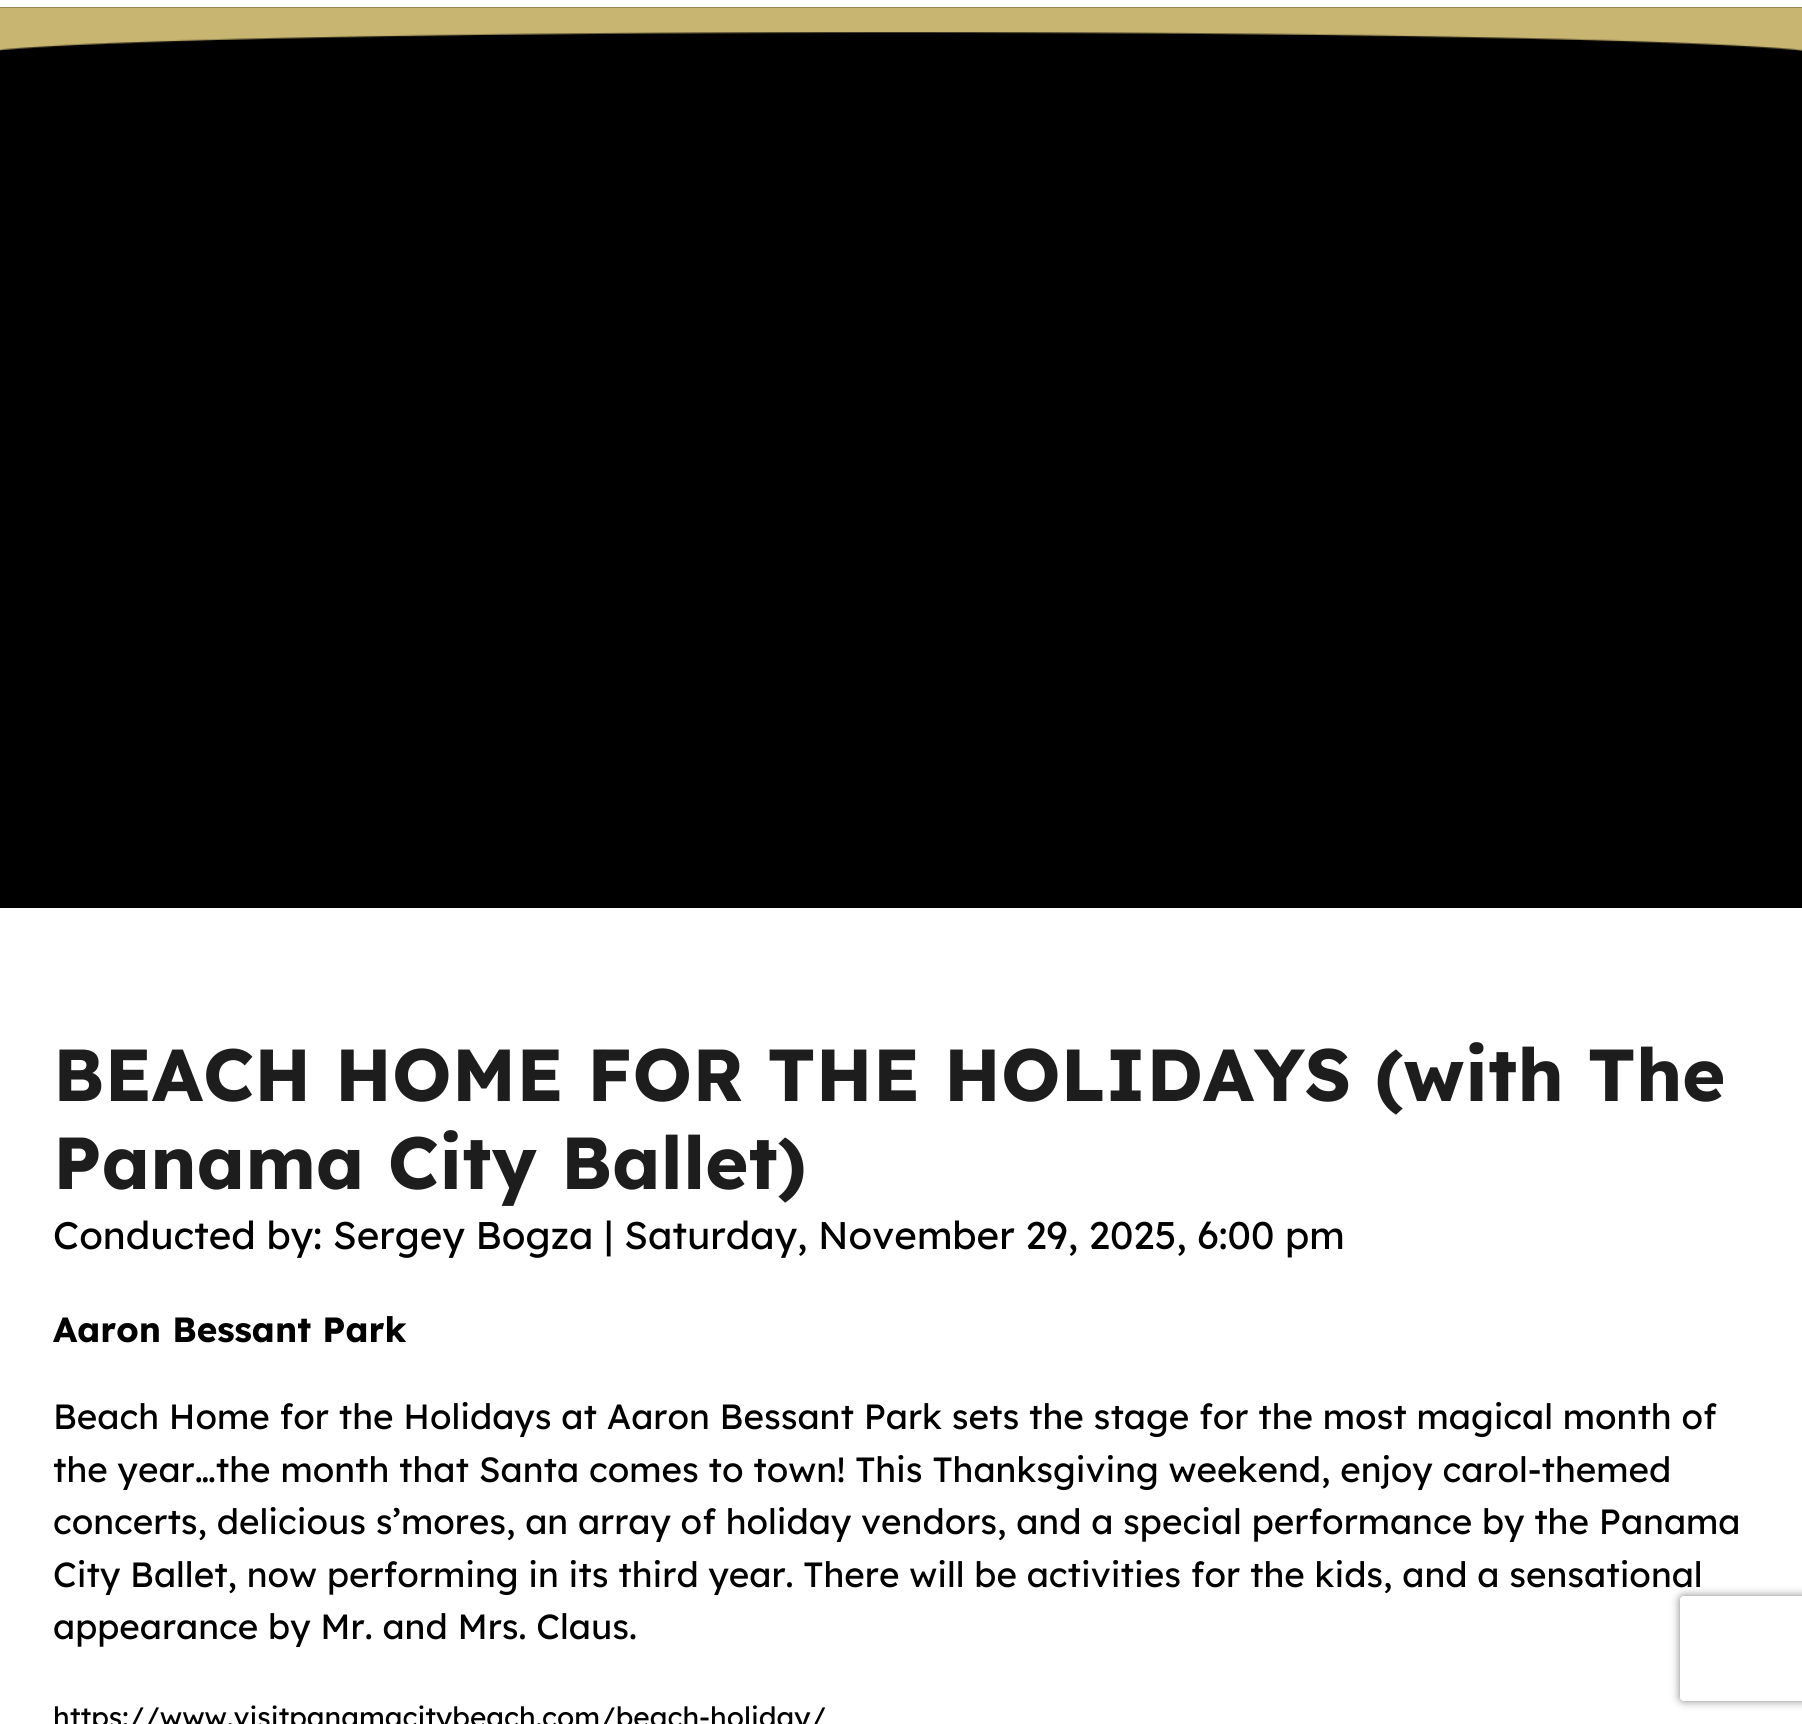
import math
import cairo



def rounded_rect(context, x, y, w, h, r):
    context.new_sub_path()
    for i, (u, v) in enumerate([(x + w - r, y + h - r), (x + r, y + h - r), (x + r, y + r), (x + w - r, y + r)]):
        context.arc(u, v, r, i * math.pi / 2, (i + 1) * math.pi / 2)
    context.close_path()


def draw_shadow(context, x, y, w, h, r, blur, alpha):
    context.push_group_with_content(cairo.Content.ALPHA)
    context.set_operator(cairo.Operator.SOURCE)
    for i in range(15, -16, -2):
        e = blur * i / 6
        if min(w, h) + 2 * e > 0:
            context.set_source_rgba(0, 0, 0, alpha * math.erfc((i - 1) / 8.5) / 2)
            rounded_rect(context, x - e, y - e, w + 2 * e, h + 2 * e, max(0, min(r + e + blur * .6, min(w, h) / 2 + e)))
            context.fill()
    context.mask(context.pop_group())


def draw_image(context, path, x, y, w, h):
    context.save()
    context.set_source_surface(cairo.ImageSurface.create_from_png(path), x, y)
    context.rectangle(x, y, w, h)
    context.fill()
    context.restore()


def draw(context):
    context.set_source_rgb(1, 1, 1)
    context.paint()
    context.set_source_rgb(0, 0, 0)
    context.rectangle(0, 7, 1802, 901)
    context.fill()
    draw_image(context, "images/1.png", 0, 7, 1802, 44)
    context.save()
    context.set_fill_rule(cairo.FillRule.EVEN_ODD)
    context.new_path()
    context.move_to(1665, 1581)
    context.line_to(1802, 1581)
    context.line_to(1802, 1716)
    context.line_to(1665, 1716)
    context.close_path()
    context.move_to(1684, 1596)
    context.line_to(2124, 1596)
    context.curve_to(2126, 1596, 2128, 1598, 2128, 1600)
    context.line_to(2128, 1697)
    context.curve_to(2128, 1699, 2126, 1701, 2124, 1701)
    context.line_to(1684, 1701)
    context.curve_to(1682, 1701, 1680, 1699, 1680, 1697)
    context.line_to(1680, 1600)
    context.curve_to(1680, 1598, 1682, 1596, 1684, 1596)
    context.close_path()
    context.clip()
    context.set_source_rgb(128 / 255, 128 / 255, 128 / 255)
    draw_shadow(context, 1680, 1596, 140, 105, 4, 4.5, 1)
    context.restore()
    context.select_font_face("Lexend", cairo.FontSlant.NORMAL, cairo.FontWeight.BOLD)
    context.set_font_size(73.5)
    context.set_source_rgb(29 / 255, 29 / 255, 29 / 255)
    context.move_to(53, 1101)
    context.show_text("BEACH HOME FOR THE HOLIDAYS (with The")
    context.move_to(53, 1189)
    context.show_text("Panama City Ballet)")
    context.select_font_face("Lexend")
    context.set_font_size(38.5)
    context.set_source_rgb(0, 0, 0)
    context.move_to(53, 1249)
    context.show_text("Conducted by: Sergey Bogza | Saturday, November 29, 2025, 6:00 pm")
    context.select_font_face("Lexend", cairo.FontSlant.NORMAL, cairo.FontWeight.BOLD)
    context.set_font_size(35)
    context.move_to(53, 1342)
    context.show_text("Aaron Bessant Park")
    context.select_font_face("Lexend")
    context.move_to(53, 1429)
    context.show_text("Beach Home for the Holidays at Aaron Bessant Park sets the stage for the most magical month of")
    context.move_to(53, 1482)
    context.show_text("the year…the month that Santa comes to town! This Thanksgiving weekend, enjoy carol-themed")
    context.move_to(53, 1534)
    context.show_text("concerts, delicious s’mores, an array of holiday vendors, and a special performance by the Panama")
    context.move_to(53, 1587)
    context.show_text("City Ballet, now performing in its third year. There will be activities for the kids, and a sensational")
    context.move_to(53, 1639)
    context.show_text("appearance by Mr. and Mrs. Claus.")
    context.set_font_size(28)
    context.move_to(53, 1727)
    context.show_text("https://www.visitpanamacitybeach.com/beach-holiday/")


surface = cairo.ImageSurface(cairo.Format.RGB24, 1802, 1724)
context = cairo.Context(surface)
options = cairo.FontOptions()
options.set_hint_metrics(cairo.HintMetrics.OFF)
options.set_hint_style(cairo.HintStyle.NONE)
context.set_font_options(options)
context.set_miter_limit(4)
draw(context)
surface.write_to_png("out.png")
